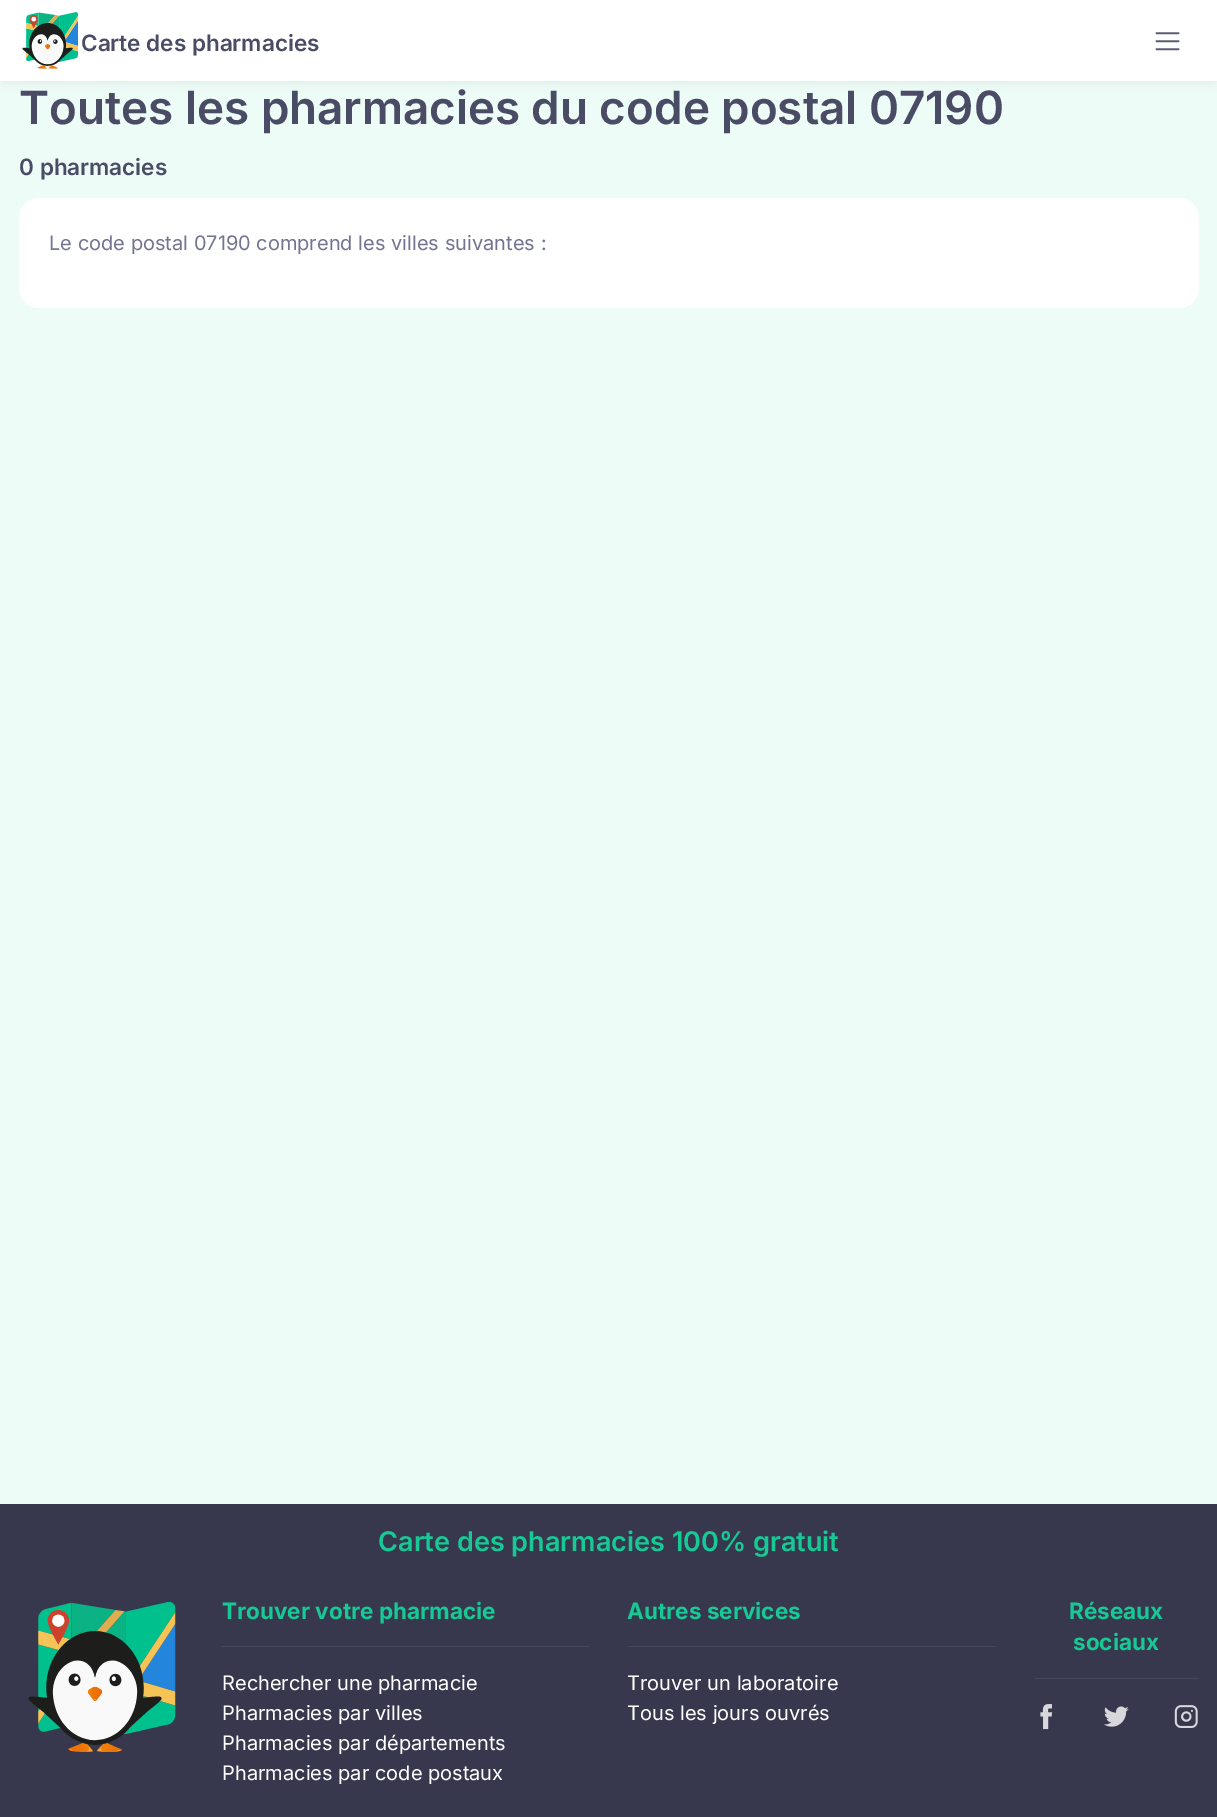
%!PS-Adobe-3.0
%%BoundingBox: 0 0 1217 1817
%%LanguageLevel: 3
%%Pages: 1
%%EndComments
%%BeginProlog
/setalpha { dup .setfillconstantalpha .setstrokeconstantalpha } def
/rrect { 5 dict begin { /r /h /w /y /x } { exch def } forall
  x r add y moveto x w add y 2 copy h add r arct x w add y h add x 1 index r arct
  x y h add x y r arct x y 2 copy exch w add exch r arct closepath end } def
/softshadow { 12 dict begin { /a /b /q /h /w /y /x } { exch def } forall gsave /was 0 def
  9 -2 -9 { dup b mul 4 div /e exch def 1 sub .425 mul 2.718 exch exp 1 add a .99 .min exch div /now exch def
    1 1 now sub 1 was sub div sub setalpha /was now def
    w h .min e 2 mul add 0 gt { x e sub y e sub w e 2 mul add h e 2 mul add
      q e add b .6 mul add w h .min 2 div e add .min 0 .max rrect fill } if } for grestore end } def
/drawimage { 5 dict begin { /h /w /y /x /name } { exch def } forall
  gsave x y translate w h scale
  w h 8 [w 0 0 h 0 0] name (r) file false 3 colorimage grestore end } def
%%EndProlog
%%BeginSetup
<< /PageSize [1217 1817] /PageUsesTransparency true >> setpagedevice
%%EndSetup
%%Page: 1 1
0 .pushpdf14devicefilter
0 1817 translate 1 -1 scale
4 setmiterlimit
0.929 0.988 0.969 setrgbcolor
0 0 1217 1817 rectfill
0 setgray
4 6 1210 74 0 6 0.1 softshadow
1 setgray
0 0 1217 81 rectfill
(images/1.raw) 22 12 57 57 drawimage
(images/2.raw) 1155 32 25 19 drawimage
19 198 1180 110 20 rrect fill
0.216 0.22 0.306 setrgbcolor
0 1504 1217 313 rectfill
(images/3.raw) 28 1602 148 150 drawimage
0.275 0.278 0.373 setrgbcolor
221 1646 369 1 rectfill
628 1646 368 1 rectfill
1034 1678 165 1 rectfill
(images/4.raw) 1040 1704 13 26 drawimage
(images/5.raw) 1104 1706 25 21 drawimage
(images/6.raw) 1174 1705 24 23 drawimage
/Inter-SemiBold [22.5 0 0 -22.5 0 0] selectfont
0.29 0.294 0.396 setrgbcolor
81 51 moveto (Carte des pharmacies) show
/Inter-SemiBold [45.75 0 0 -45.75 0 0] selectfont
19 124 moveto (Toutes les pharmacies du code postal 07190) show
/Inter-SemiBold [22.5 0 0 -22.5 0 0] selectfont
19 175 moveto (0 pharmacies) show
/Inter-Regular [20 0 0 -20 0 0] selectfont
0.451 0.455 0.569 setrgbcolor
49 250 moveto (Le code postal 07190 comprend les villes suivantes :) show
/Inter-SemiBold [27.1 0 0 -27.1 0 0] selectfont
0.086 0.788 0.584 setrgbcolor
378 1551 moveto (Carte des pharmacies 100% gratuit) show
/Inter-Bold [22.5 0 0 -22.5 0 0] selectfont
222 1619 moveto (Trouver votre pharmacie) show
/Inter-Regular [20 0 0 -20 0 0] selectfont
1 setgray
222 1690 moveto (Rechercher une pharmacie) show
222 1720 moveto (Pharmacies par villes) show
222 1750 moveto (Pharmacies par départements) show
222 1780 moveto (Pharmacies par code postaux) show
/Inter-Bold [22.5 0 0 -22.5 0 0] selectfont
0.086 0.788 0.584 setrgbcolor
627 1619 moveto (Autres services) show
/Inter-Regular [20 0 0 -20 0 0] selectfont
1 setgray
627 1690 moveto (Trouver un laboratoire) show
627 1720 moveto (Tous les jours ouvrés) show
/Inter-Bold [22.5 0 0 -22.5 0 0] selectfont
0.086 0.788 0.584 setrgbcolor
1069 1619 moveto (Réseaux) show
1073 1650 moveto (sociaux) show
.poppdf14devicefilter showpage
%%EOF
